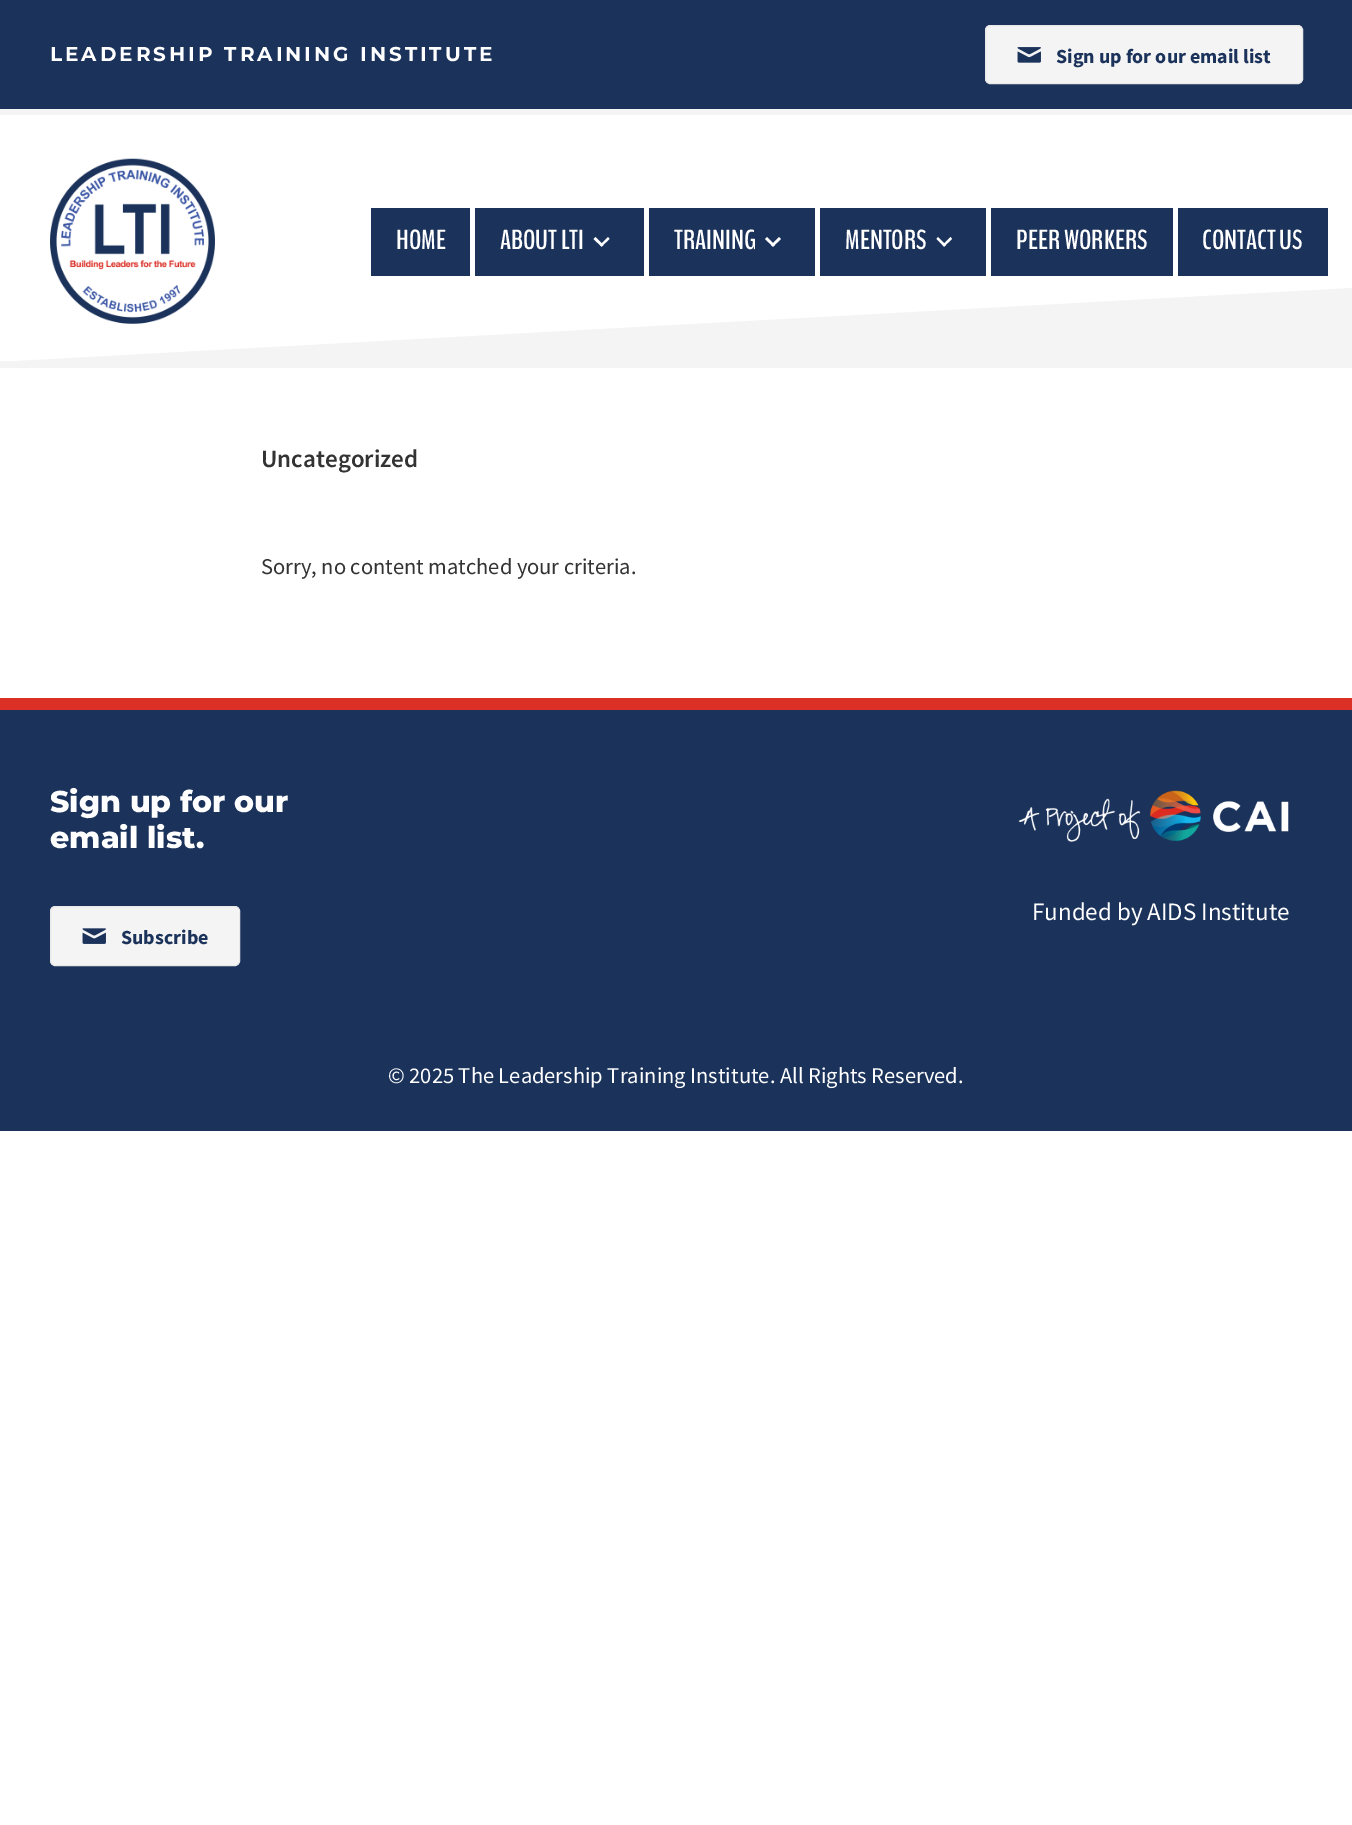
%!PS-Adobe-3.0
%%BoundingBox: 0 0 1352 1825
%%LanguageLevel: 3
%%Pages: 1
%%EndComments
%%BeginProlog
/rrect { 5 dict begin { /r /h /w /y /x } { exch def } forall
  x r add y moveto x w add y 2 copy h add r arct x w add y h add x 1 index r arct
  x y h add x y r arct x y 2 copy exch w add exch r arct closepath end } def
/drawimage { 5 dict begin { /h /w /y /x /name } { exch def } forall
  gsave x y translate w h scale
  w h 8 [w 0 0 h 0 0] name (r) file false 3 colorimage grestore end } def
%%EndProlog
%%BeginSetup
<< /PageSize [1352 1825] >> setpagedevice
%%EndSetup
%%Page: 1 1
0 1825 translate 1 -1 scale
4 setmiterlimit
1 setgray
0 0 1352 1825 rectfill
0.106 0.196 0.357 setrgbcolor
0 0 1352 109 rectfill
0.957 setgray
0 109 1352 6 rectfill
985.5 25.5 317 58 4.5 rrect gsave fill grestore
0.91 setgray
stroke
(images/1.raw) 1017 47 24 16 drawimage
0.957 setgray
0 361 1352 7 rectfill
newpath 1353 288 moveto 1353 362 lineto -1 362 lineto closepath fill
(images/2.raw) 50 158 165 166 drawimage
0.106 0.196 0.357 setrgbcolor
371 208 99 68 rectfill
475 208 169 68 rectfill
1 setgray
newpath 608 237 moveto 609.5 239 lineto 601.5 246.5 lineto 600 245 lineto closepath fill
newpath 595.5 237 moveto 603.5 245 lineto 601.5 246.5 lineto 593.5 239 lineto closepath fill
0.106 0.196 0.357 setrgbcolor
649 208 166 68 rectfill
1 setgray
newpath 779 237 moveto 781 239 lineto 773 246.5 lineto 771 245 lineto closepath fill
newpath 767 237 moveto 775 245 lineto 773 246.5 lineto 765 239 lineto closepath fill
0.106 0.196 0.357 setrgbcolor
820 208 166 68 rectfill
1 setgray
newpath 950.5 237 moveto 952 239 lineto 944 246.5 lineto 942.5 245 lineto closepath fill
newpath 938 237 moveto 946 245 lineto 944 246.5 lineto 936.5 239 lineto closepath fill
0.106 0.196 0.357 setrgbcolor
991 208 182 68 rectfill
1178 208 150 68 rectfill
0 710 1352 421 rectfill
0.863 0.188 0.153 setrgbcolor
0 698 1352 12 rectfill
0.957 setgray
50.5 906.5 189 59 4.5 rrect gsave fill grestore
0.91 setgray
stroke
(images/3.raw) 82 928 24 16 drawimage
(images/4.raw) 1018 790 271 52 drawimage
/Montserrat-Bold [20 0 0 -20 0 0] selectfont
1 setgray
50 61 moveto 3 0 (LEADERSHIP TRAINING INSTITUTE) ashow
/SourceSansPro-Bold [20 0 0 -20 0 0] selectfont
0.106 0.196 0.357 setrgbcolor
1056 63 moveto (Sign up for our email list) show
/BenchNine-Bold [27.5 0 0 -27.5 0 0] selectfont
1 setgray
396 249 moveto (HOME) show
500 249 moveto (ABOUT LTI) show
674 249 moveto (TRAINING) show
845 249 moveto (MENTORS) show
1016 249 moveto (PEER WORKERS) show
1202 249 moveto (CONTACT US) show
/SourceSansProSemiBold-SemiBold [25 0 0 -25 0 0] selectfont
0.2 setgray
261 467 moveto (Uncategorized) show
/SourceSansPro-Regular [22.5 0 0 -22.5 0 0] selectfont
261 574 moveto (Sorry, no content matched your criteria.) show
/Montserrat-ExtraBold [30 0 0 -30 0 0] selectfont
1 setgray
50 812 moveto (Sign up for our) show
50 848 moveto (email list.) show
/SourceSansPro-Bold [20 0 0 -20 0 0] selectfont
0.106 0.196 0.357 setrgbcolor
121 944 moveto (Subscribe) show
/SourceSansPro-Regular [25 0 0 -25 0 0] selectfont
1 setgray
1032 920 moveto (Funded by AIDS Institute) show
/SourceSansPro-Regular [22.5 0 0 -22.5 0 0] selectfont
388 1083 moveto (© 2025 The Leadership Training Institute. All Rights Reserved.) show
showpage
%%EOF
